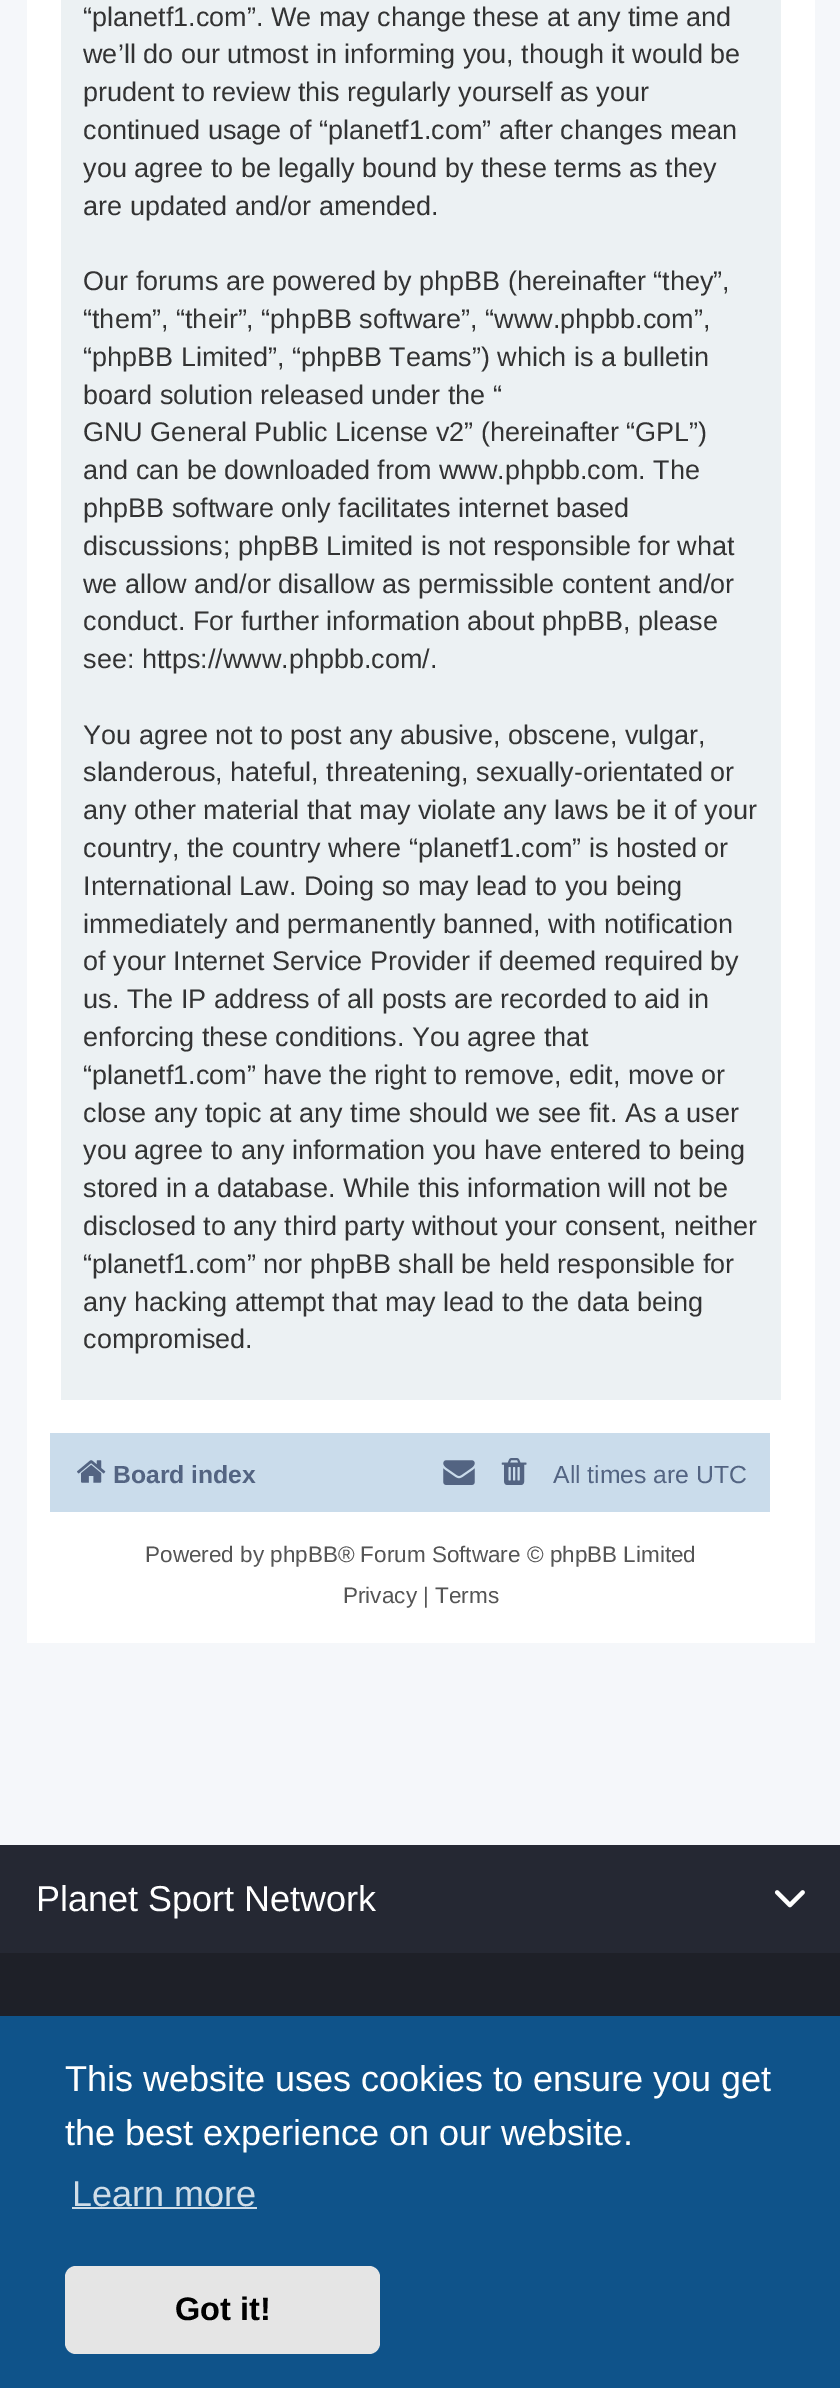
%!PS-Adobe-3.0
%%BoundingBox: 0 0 840 2388
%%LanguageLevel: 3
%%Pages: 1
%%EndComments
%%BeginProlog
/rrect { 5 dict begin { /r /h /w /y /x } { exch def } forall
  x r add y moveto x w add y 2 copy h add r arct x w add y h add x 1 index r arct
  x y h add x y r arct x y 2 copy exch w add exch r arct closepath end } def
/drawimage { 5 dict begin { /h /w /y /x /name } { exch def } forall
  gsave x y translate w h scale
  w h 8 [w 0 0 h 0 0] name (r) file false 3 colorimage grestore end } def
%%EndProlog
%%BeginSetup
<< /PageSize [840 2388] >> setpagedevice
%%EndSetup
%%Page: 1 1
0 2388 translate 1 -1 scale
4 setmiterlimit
0.961 0.969 0.98 setrgbcolor
0 0 840 2388 rectfill
1 setgray
27 0 788 1643 rectfill
0.925 0.945 0.953 setrgbcolor
61 0 720 1400 rectfill
0.792 0.863 0.922 setrgbcolor
50 1433 720 79 rectfill
(images/1.raw) 77 1460 29 23 drawimage
(images/2.raw) 443 1460 32 25 drawimage
(images/3.raw) 501 1458 26 27 drawimage
0.145 0.157 0.2 setrgbcolor
0 1845 840 108 rectfill
(images/4.raw) 774 1890 31 18 drawimage
0.118 0.125 0.157 setrgbcolor
0 1953 840 63 rectfill
0.059 0.325 0.541 setrgbcolor
0 2016 840 372 rectfill
0.812 0.867 0.91 setrgbcolor
72 2207 185 2 rectfill
0.898 setgray
65 2266 315 88 11 rrect fill
/LiberationSans-Regular [27 0 0 -27 0 0] selectfont
0.2 setgray
83 26 moveto (“planetf1.com”. We may change these at any time and) show
83 63 moveto (we’ll do our utmost in informing you, though it would be) show
83 101 moveto (prudent to review this regularly yourself as your) show
83 139 moveto (continued usage of “planetf1.com” after changes mean) show
83 177 moveto (you agree to be legally bound by these terms as they) show
83 215 moveto (are updated and/or amended.) show
83 290 moveto (Our forums are powered by phpBB \(hereinafter “they”,) show
83 328 moveto (“them”, “their”, “phpBB software”, “www.phpbb.com”,) show
83 366 moveto (“phpBB Limited”, “phpBB Teams”\) which is a bulletin) show
83 404 moveto (board solution released under the “) show
83 441 moveto (GNU General Public License v2” \(hereinafter “GPL”\)) show
83 479 moveto (and can be downloaded from www.phpbb.com. The) show
83 517 moveto (phpBB software only facilitates internet based) show
83 555 moveto (discussions; phpBB Limited is not responsible for what) show
83 593 moveto (we allow and/or disallow as permissible content and/or) show
83 630 moveto (conduct. For further information about phpBB, please) show
83 668 moveto (see: https://www.phpbb.com/.) show
83 744 moveto (You agree not to post any abusive, obscene, vulgar,) show
83 781 moveto (slanderous, hateful, threatening, sexually-orientated or) show
83 819 moveto (any other material that may violate any laws be it of your) show
83 857 moveto (country, the country where “planetf1.com” is hosted or) show
83 895 moveto (International Law. Doing so may lead to you being) show
83 933 moveto (immediately and permanently banned, with notification) show
83 970 moveto (of your Internet Service Provider if deemed required by) show
83 1008 moveto (us. The IP address of all posts are recorded to aid in) show
83 1046 moveto (enforcing these conditions. You agree that) show
83 1084 moveto (“planetf1.com” have the right to remove, edit, move or) show
83 1122 moveto (close any topic at any time should we see fit. As a user) show
83 1159 moveto (you agree to any information you have entered to being) show
83 1197 moveto (stored in a database. While this information will not be) show
83 1235 moveto (disclosed to any third party without your consent, neither) show
83 1273 moveto (“planetf1.com” nor phpBB shall be held responsible for) show
83 1311 moveto (any hacking attempt that may lead to the data being) show
83 1348 moveto (compromised.) show
/LiberationSans-Bold [24.75 0 0 -24.75 0 0] selectfont
0.325 0.392 0.51 setrgbcolor
113 1483 moveto (Board index) show
/LiberationSans-Regular [24.75 0 0 -24.75 0 0] selectfont
553 1483 moveto (All times are UTC) show
/LiberationSans-Regular [22.5 0 0 -22.5 0 0] selectfont
0.333 setgray
145 1562 moveto (Powered by phpBB® Forum Software © phpBB Limited) show
343 1603 moveto (Privacy | Terms) show
/LiberationSans-Regular [36 0 0 -36 0 0] selectfont
1 setgray
36 1911 moveto (Planet Sport Network) show
65 2091 moveto (This website uses cookies to ensure you get) show
65 2145 moveto (the best experience on our website.) show
0.812 0.867 0.91 setrgbcolor
72 2206 moveto (Learn more) show
/LiberationSans-Bold [32.5 0 0 -32.5 0 0] selectfont
0 setgray
175 2320 moveto (Got it!) show
showpage
%%EOF
